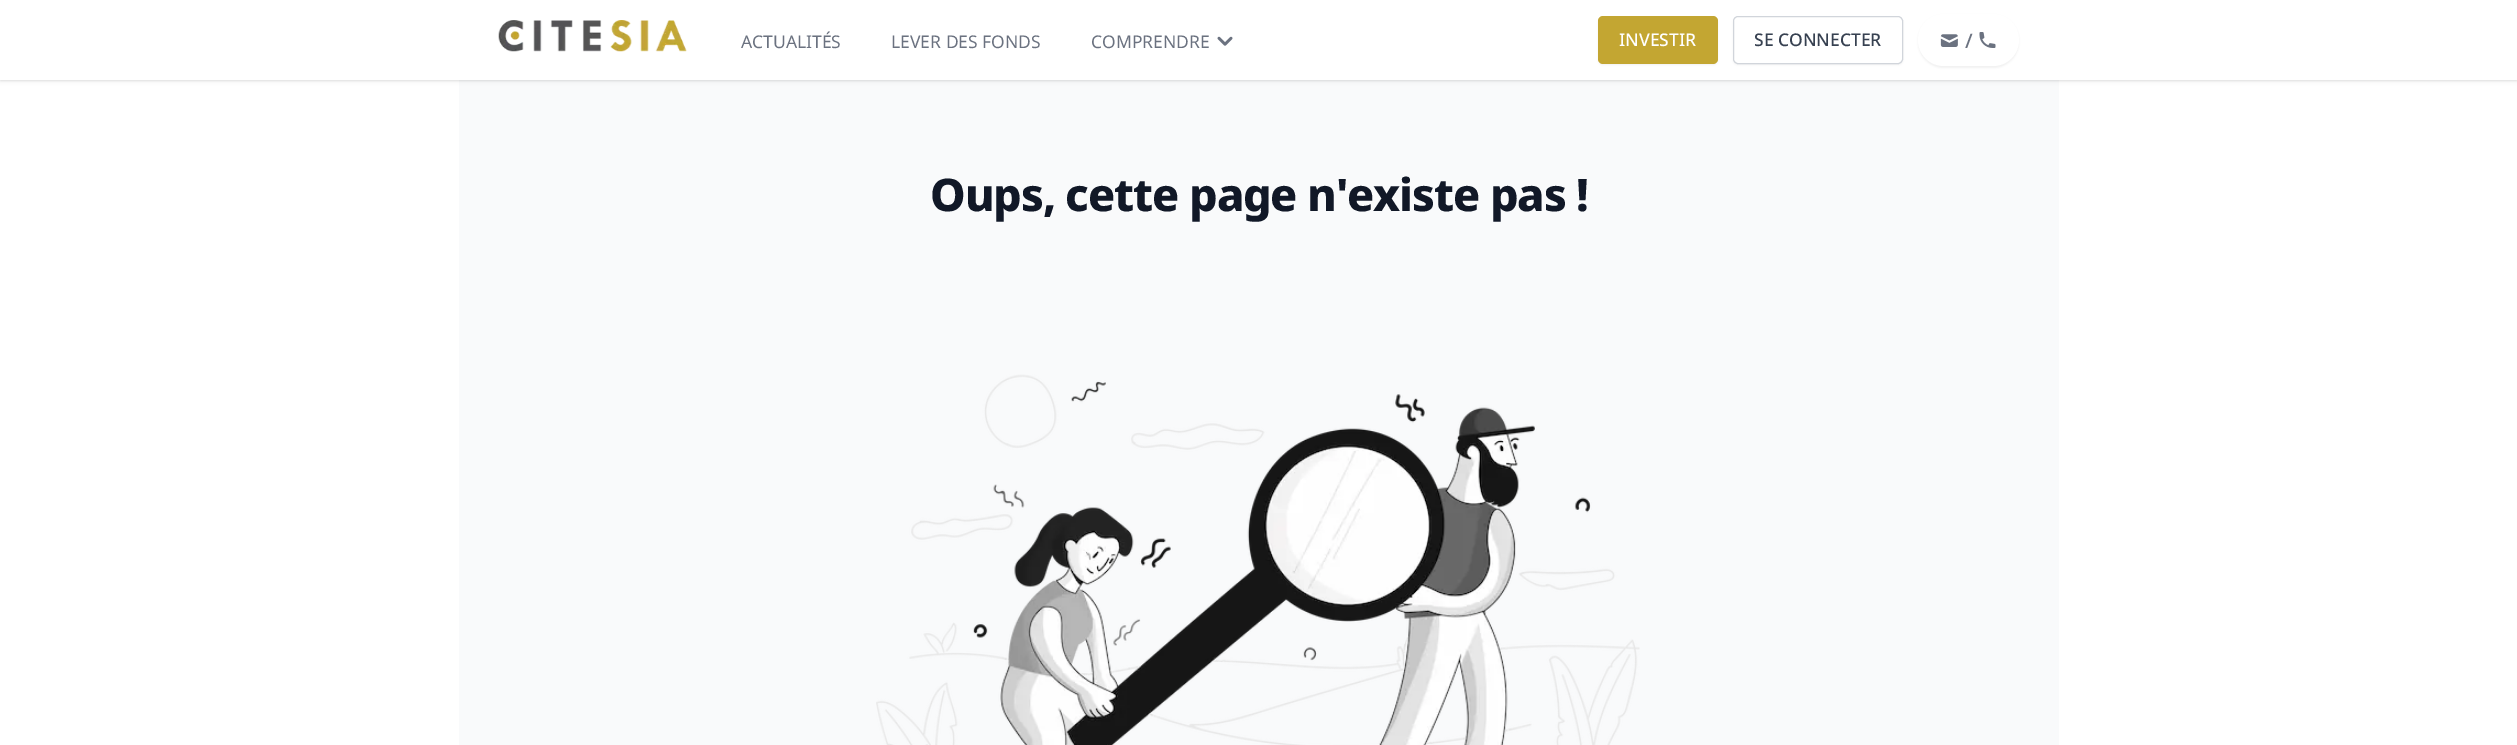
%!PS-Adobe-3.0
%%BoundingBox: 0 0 2517 745
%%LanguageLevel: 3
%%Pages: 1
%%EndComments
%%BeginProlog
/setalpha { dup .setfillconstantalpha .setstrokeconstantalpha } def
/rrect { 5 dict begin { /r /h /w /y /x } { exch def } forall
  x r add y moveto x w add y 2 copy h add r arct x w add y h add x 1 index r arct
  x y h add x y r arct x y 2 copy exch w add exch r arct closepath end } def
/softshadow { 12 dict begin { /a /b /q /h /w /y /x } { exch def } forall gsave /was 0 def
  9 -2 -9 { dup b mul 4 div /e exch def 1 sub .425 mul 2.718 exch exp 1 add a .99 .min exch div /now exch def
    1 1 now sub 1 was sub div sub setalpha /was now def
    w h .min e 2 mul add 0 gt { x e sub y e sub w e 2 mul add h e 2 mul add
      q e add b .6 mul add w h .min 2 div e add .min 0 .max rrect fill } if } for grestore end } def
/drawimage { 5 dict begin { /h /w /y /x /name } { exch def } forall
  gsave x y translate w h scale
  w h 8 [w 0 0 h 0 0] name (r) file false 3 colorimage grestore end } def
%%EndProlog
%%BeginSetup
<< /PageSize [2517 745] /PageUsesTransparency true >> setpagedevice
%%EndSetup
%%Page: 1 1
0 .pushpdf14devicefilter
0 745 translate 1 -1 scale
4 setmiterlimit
1 setgray
0 0 2517 745 rectfill
0.976 0.98 0.984 setrgbcolor
459 80 1600 665 rectfill
0 setgray
1 3 2515 77 0 1 0.1 softshadow
0 1 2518 80 0 2 0.1 softshadow
1 setgray
0 0 2517 80 rectfill
(images/1.raw) 498 20 189 32 drawimage
(images/2.raw) 1217 36 16 10 drawimage
0 setgray
1598 18 120 47 5 1 0.05 softshadow
0.765 0.651 0.196 setrgbcolor
1598 16 120 48 5 rrect fill
0 setgray
1733 18 170 47 5 1 0.05 softshadow
1 setgray
1733.5 16.5 169 47 4.5 rrect gsave fill grestore
0.82 0.835 0.859 setrgbcolor
stroke
0 setgray
1918 15 101 53 26.5 1 0.05 softshadow
1 setgray
1918 14 101 52 26 rrect fill
(images/3.raw) 1940 34 18 13 drawimage
(images/4.raw) 1979 32 17 16 drawimage
(images/5.raw) 876 374 764 371 drawimage
/NotoSans-Regular [17.5 0 0 -17.5 0 0] selectfont
0.42 0.447 0.502 setrgbcolor
741 48 moveto (ACTUALITÉS) show
891 48 moveto (LEVER DES FONDS) show
1091 48 moveto (COMPRENDRE) show
/NotoSans-Medium [17.5 0 0 -17.5 0 0] selectfont
1 setgray
1619 46 moveto (INVESTIR) show
0.216 0.255 0.318 setrgbcolor
1754 46 moveto (SE CONNECTER) show
/NotoSans-Medium [20 0 0 -20 0 0] selectfont
0.42 0.447 0.502 setrgbcolor
1965 48 moveto (/) show
/NotoSans-ExtraBold [45 0 0 -45 0 0] selectfont
0.067 0.094 0.153 setrgbcolor
930 211 moveto -1.1 0 (Oups, cette page n'existe pas !) ashow
.poppdf14devicefilter showpage
%%EOF
